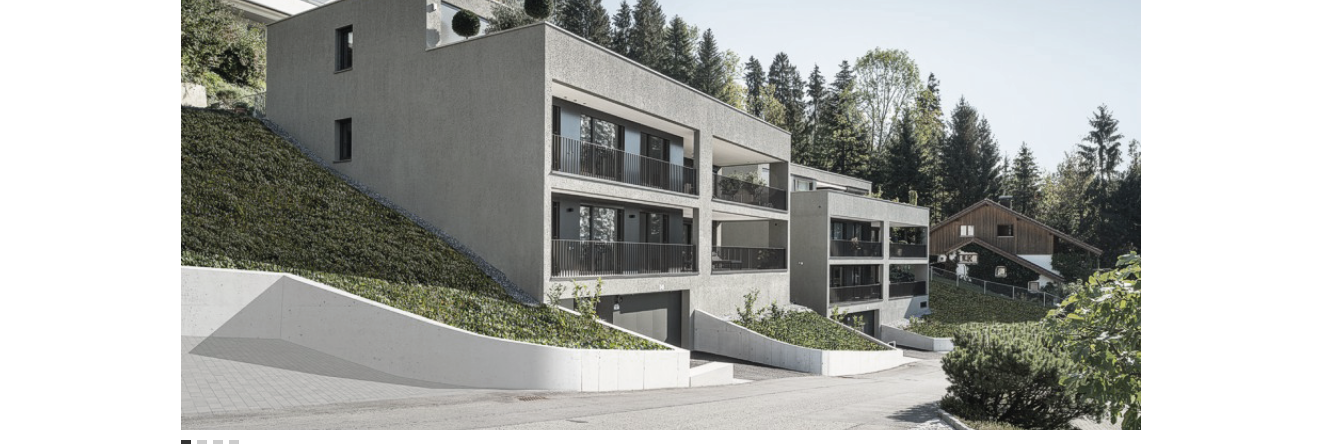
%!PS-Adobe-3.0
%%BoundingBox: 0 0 1322 444
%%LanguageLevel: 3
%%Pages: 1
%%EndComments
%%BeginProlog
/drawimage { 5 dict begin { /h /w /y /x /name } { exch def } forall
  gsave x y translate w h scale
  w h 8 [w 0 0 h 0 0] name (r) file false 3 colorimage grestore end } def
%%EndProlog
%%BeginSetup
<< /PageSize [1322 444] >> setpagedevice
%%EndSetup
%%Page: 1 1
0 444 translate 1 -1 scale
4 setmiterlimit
1 setgray
0 0 1322 444 rectfill
(images/1.raw) 181 0 960 430 drawimage
0.2 setgray
181 440 10 4 rectfill
0.8 setgray
197 440 10 4 rectfill
213 440 10 4 rectfill
229 440 10 4 rectfill
showpage
%%EOF
